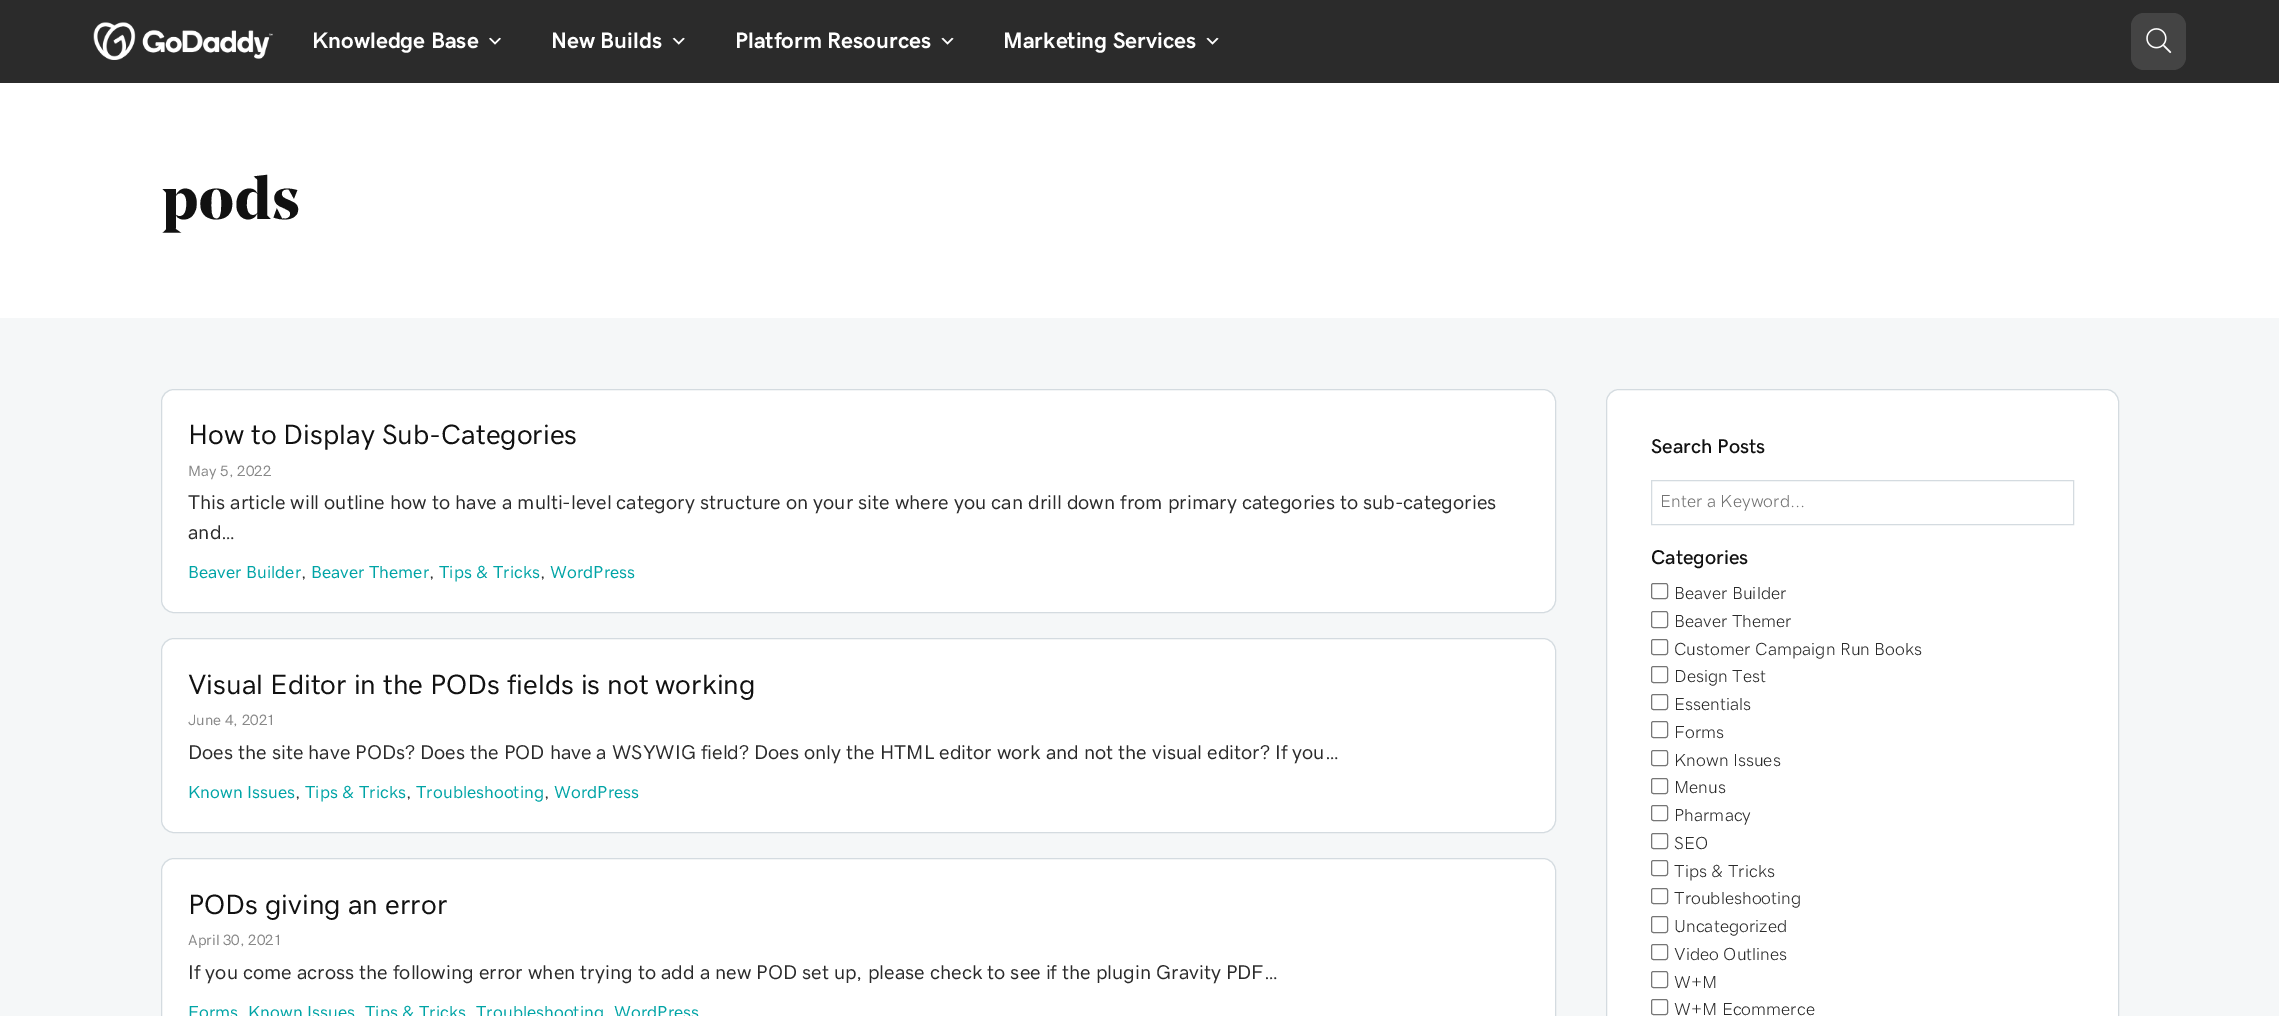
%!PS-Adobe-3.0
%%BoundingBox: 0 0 2279 1016
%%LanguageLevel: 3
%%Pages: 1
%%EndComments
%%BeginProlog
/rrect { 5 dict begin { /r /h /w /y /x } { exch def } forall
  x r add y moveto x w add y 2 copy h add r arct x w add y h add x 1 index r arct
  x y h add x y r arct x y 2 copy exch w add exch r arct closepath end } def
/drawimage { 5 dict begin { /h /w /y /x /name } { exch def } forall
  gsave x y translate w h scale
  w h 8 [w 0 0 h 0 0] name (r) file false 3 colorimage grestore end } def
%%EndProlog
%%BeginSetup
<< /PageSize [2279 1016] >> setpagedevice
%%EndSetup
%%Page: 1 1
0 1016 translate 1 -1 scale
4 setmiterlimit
1 setgray
0 0 2279 1016 rectfill
0.169 setgray
0 0 2279 83 rectfill
(images/1.raw) 93 22 180 38 drawimage
(images/2.raw) 489 37 12 8 drawimage
(images/3.raw) 672 37 13 8 drawimage
(images/4.raw) 941 37 13 8 drawimage
(images/4.raw) 1206 37 13 8 drawimage
0.267 setgray
2131 13 55 57 13 rrect fill
(images/5.raw) 2146 28 26 26 drawimage
0.961 0.969 0.973 setrgbcolor
0 318 2279 698 rectfill
1 setgray
161.5 389.5 1394 223 12.5 rrect gsave fill grestore
0.831 0.859 0.878 setrgbcolor
stroke
1 setgray
161.5 638.5 1394 194 12.5 rrect gsave fill grestore
0.831 0.859 0.878 setrgbcolor
stroke
1 setgray
161.5 858.5 1394 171 12.5 rrect gsave fill grestore
0.831 0.859 0.878 setrgbcolor
stroke
1 setgray
1606.5 389.5 512 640 12.5 rrect gsave fill grestore
0.831 0.859 0.878 setrgbcolor
stroke
1651.5 480.5 422 44 rectstroke
0.463 setgray
1651.5 583.5 16 15 2 rrect stroke
1651.5 611.5 16 16 2 rrect stroke
1651.5 639.5 16 15 2 rrect stroke
1651.5 666.5 16 16 2 rrect stroke
1651.5 694.5 16 15 2 rrect stroke
1651.5 721.5 16 16 2 rrect stroke
1651.5 750.5 16 15 2 rrect stroke
1651.5 778.5 16 15 2 rrect stroke
1651.5 805.5 16 15 2 rrect stroke
1651.5 833.5 16 15 2 rrect stroke
1651.5 860.5 16 15 2 rrect stroke
1651.5 888.5 16 15 2 rrect stroke
1651.5 916.5 16 16 2 rrect stroke
1651.5 944.5 16 15 2 rrect stroke
1651.5 971.5 16 16 2 rrect stroke
1651.5 999.5 16 15 2 rrect stroke
/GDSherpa-Bold [22.5 0 0 -22.5 0 0] selectfont
1 setgray
312 48 moveto (Knowledge Base) show
551 48 moveto (New Builds) show
735 48 moveto (Platform Resources) show
1003 48 moveto (Marketing Services) show
/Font-Bold [57.5 0 0 -57.5 0 0] selectfont
0.067 setgray
162 219 moveto 1 0 (pods) ashow
/GDSherpa-Medium [28 0 0 -28 0 0] selectfont
188 444 moveto (How to Display Sub-Categories) show
/GDSherpa-Medium [15 0 0 -15 0 0] selectfont
0.533 setgray
188 476 moveto (May 5, 2022) show
/GDSherpa-Medium [20 0 0 -20 0 0] selectfont
0.169 setgray
188 509 moveto (This article will outline how to have a multi-level category structure on your site where you can drill down from primary categories to sub-categories) show
188 539 moveto (and…) show
/GDSherpa-Medium [17.5 0 0 -17.5 0 0] selectfont
0 0.643 0.651 setrgbcolor
188 578 moveto (Beaver Builder) show
0.169 setgray
301 578 moveto (,) show
0 0.643 0.651 setrgbcolor
311 578 moveto (Beaver Themer) show
0.169 setgray
429 578 moveto (,) show
0 0.643 0.651 setrgbcolor
439 578 moveto (Tips & Tricks) show
0.169 setgray
540 578 moveto (,) show
0 0.643 0.651 setrgbcolor
550 578 moveto (WordPress) show
/GDSherpa-Medium [28 0 0 -28 0 0] selectfont
0.067 setgray
188 694 moveto (Visual Editor in the PODs fields is not working) show
/GDSherpa-Medium [15 0 0 -15 0 0] selectfont
0.533 setgray
188 725 moveto (June 4, 2021) show
/GDSherpa-Medium [20 0 0 -20 0 0] selectfont
0.169 setgray
188 759 moveto (Does the site have PODs? Does the POD have a WSYWIG field? Does only the HTML editor work and not the visual editor? If you…) show
/GDSherpa-Medium [17.5 0 0 -17.5 0 0] selectfont
0 0.643 0.651 setrgbcolor
188 798 moveto (Known Issues) show
0.169 setgray
295 798 moveto (,) show
0 0.643 0.651 setrgbcolor
305 798 moveto (Tips & Tricks) show
0.169 setgray
406 798 moveto (,) show
0 0.643 0.651 setrgbcolor
416 798 moveto (Troubleshooting) show
0.169 setgray
544 798 moveto (,) show
0 0.643 0.651 setrgbcolor
554 798 moveto (WordPress) show
/GDSherpa-Medium [28 0 0 -28 0 0] selectfont
0.067 setgray
188 914 moveto (PODs giving an error) show
/GDSherpa-Medium [15 0 0 -15 0 0] selectfont
0.533 setgray
188 945 moveto (April 30, 2021) show
/GDSherpa-Medium [20 0 0 -20 0 0] selectfont
0.169 setgray
188 979 moveto (If you come across the following error when trying to add a new POD set up, please check to see if the plugin Gravity PDF…) show
/GDSherpa-Medium [17.5 0 0 -17.5 0 0] selectfont
0 0.643 0.651 setrgbcolor
188 1018 moveto (Forms) show
248 1018 moveto (Known Issues) show
365 1018 moveto (Tips & Tricks) show
476 1018 moveto (Troubleshooting) show
614 1018 moveto (WordPress) show
/GDSherpa-SemiBold [20 0 0 -20 0 0] selectfont
0.067 setgray
1651 453 moveto (Search Posts) show
/GDSherpa-Regular [17.5 0 0 -17.5 0 0] selectfont
0.451 setgray
1660 507 moveto (Enter a Keyword...) show
/GDSherpa-SemiBold [20 0 0 -20 0 0] selectfont
0.067 setgray
1651 564 moveto (Categories) show
/GDSherpa-Regular [17.5 0 0 -17.5 0 0] selectfont
0.169 setgray
1674 599 moveto (Beaver Builder) show
1674 627 moveto (Beaver Themer) show
1674 655 moveto (Customer Campaign Run Books) show
1674 682 moveto (Design Test) show
1674 710 moveto (Essentials) show
1674 738 moveto (Forms) show
1674 766 moveto (Known Issues) show
1674 793 moveto (Menus) show
1674 821 moveto (Pharmacy) show
1674 849 moveto (SEO) show
1674 877 moveto (Tips & Tricks) show
1674 904 moveto (Troubleshooting) show
1674 932 moveto (Uncategorized) show
1674 960 moveto (Video Outlines) show
1674 988 moveto (W+M) show
1674 1015 moveto (W+M Ecommerce) show
showpage
%%EOF
